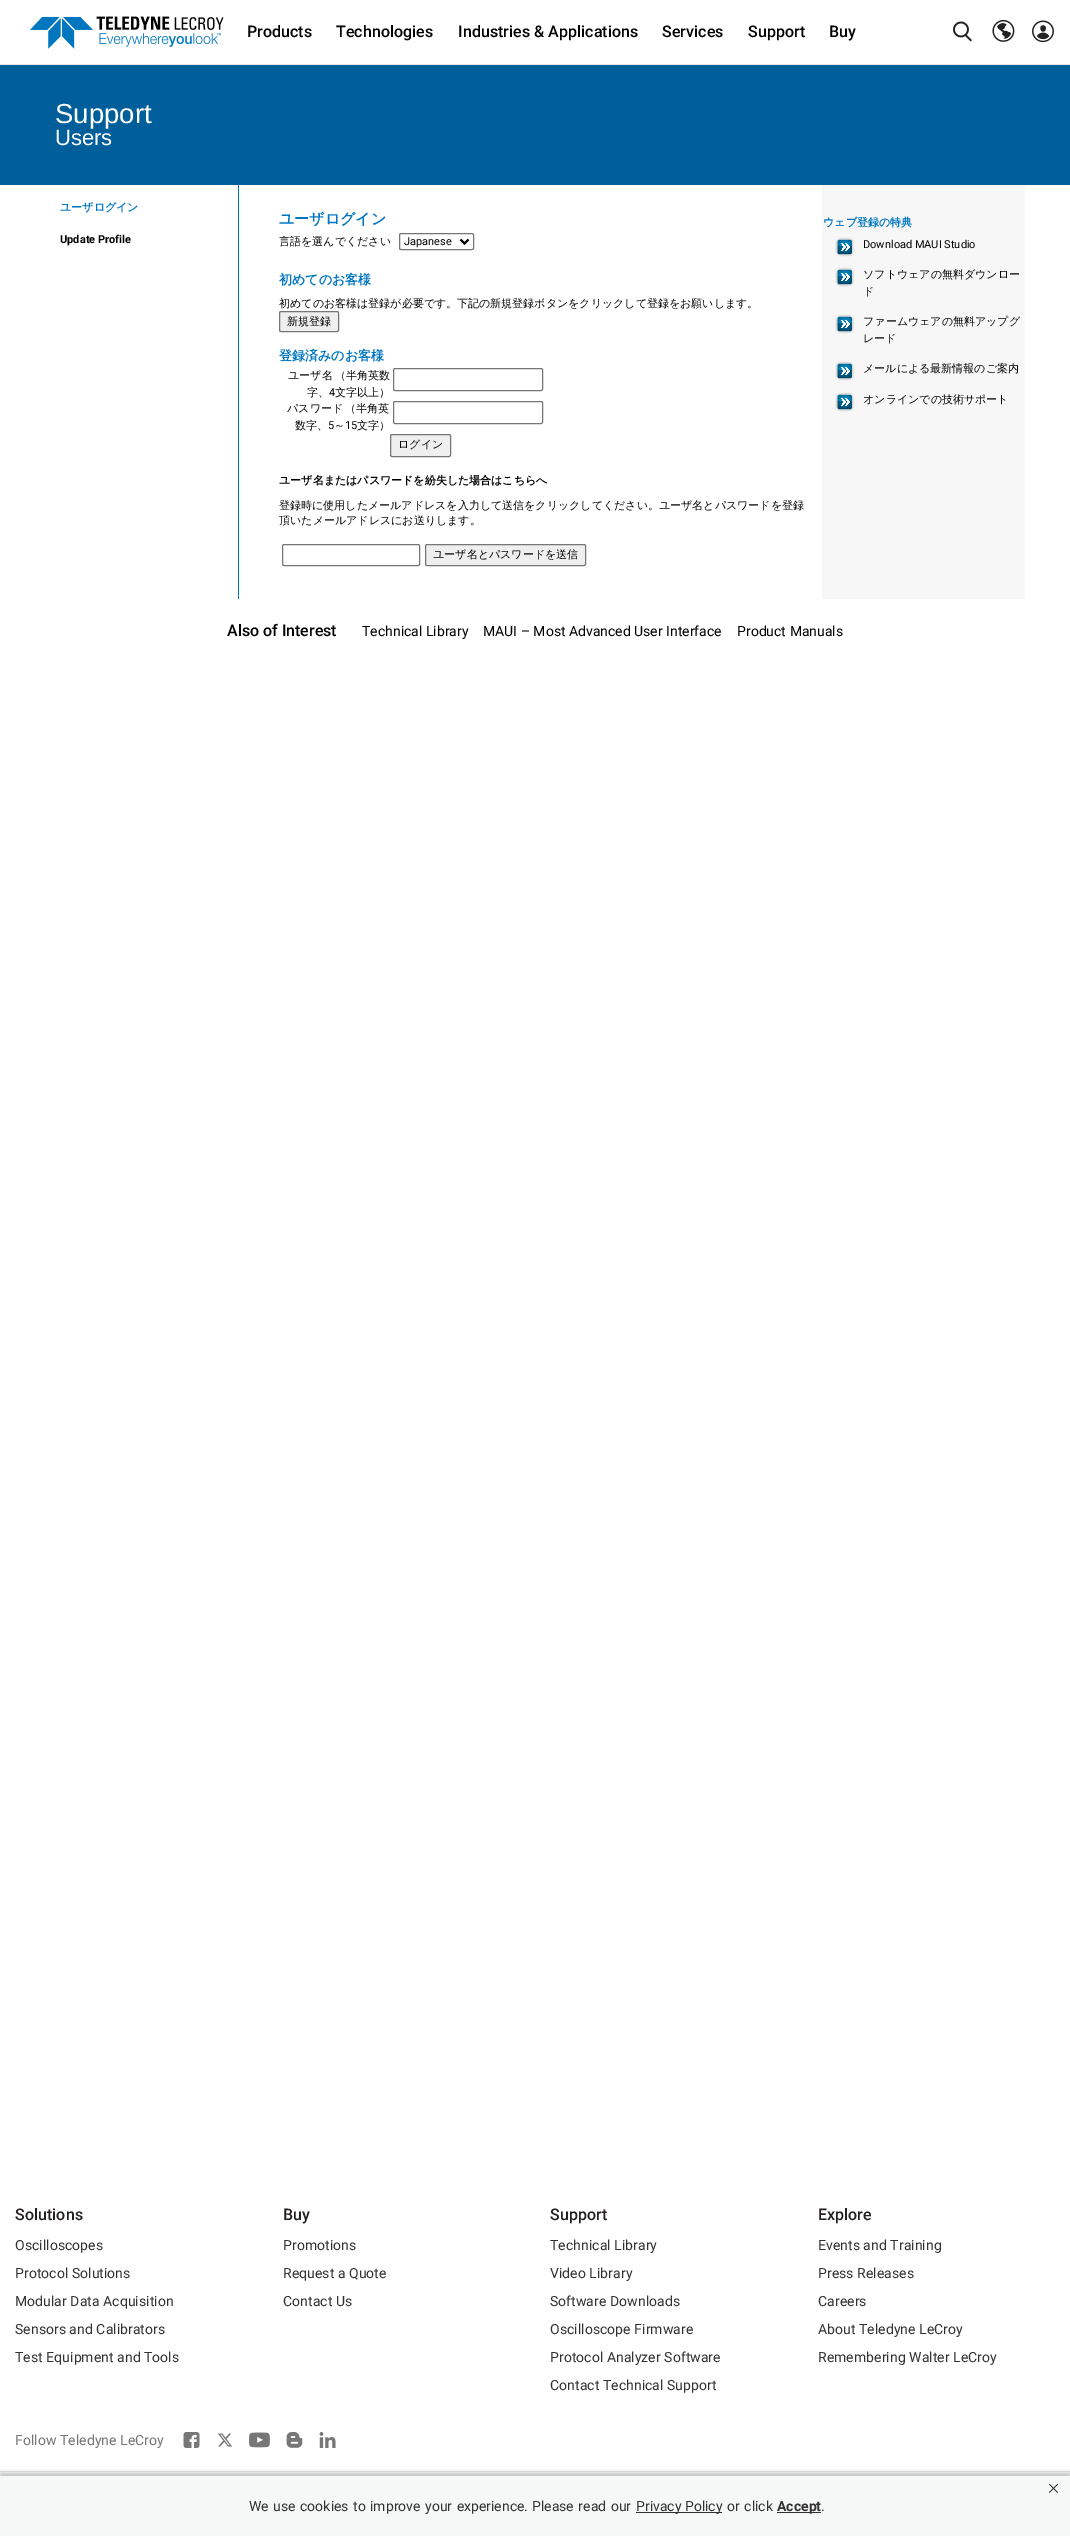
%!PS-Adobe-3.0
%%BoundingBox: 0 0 1070 2536
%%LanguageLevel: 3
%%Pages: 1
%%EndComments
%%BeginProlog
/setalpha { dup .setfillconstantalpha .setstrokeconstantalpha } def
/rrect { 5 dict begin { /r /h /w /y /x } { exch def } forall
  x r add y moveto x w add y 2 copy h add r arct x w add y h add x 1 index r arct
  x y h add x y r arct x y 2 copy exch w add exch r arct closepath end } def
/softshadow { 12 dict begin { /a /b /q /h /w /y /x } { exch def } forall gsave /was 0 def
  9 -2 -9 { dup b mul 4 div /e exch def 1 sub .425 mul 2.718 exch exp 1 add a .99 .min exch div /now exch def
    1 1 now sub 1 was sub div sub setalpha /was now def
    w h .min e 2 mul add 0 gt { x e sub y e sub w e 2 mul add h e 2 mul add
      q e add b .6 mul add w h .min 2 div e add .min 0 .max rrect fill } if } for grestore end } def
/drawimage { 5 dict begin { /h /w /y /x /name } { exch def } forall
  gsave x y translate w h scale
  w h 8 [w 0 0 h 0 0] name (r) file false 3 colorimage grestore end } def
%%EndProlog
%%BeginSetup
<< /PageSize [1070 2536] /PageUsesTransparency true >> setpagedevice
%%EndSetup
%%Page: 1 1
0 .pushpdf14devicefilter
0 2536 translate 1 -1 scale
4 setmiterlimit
1 setgray
0 0 1070 2536 rectfill
0.886 0.894 0.902 setrgbcolor
0 64 1070 1 rectfill
(images/1.raw) 30 16 194 33 drawimage
(images/2.raw) 953 21 19 21 drawimage
(images/3.raw) 992 19 23 23 drawimage
(images/4.raw) 1032 20 22 23 drawimage
0 0.373 0.604 setrgbcolor
0 65 1070 120 rectfill
0.969 setgray
822 185 203 414 rectfill
0 0.463 0.753 setrgbcolor
238 185 1 414 rectfill
(images/5.raw) 835 237 20 20 drawimage
(images/5.raw) 835 267 20 20 drawimage
(images/5.raw) 835 314 20 20 drawimage
(images/5.raw) 835 361 20 20 drawimage
(images/5.raw) 835 392 20 20 drawimage
0.463 setgray
399.5 233.5 74 16 1.5 rrect stroke
0 setgray
2 setlinewidth
newpath 460.5 239.5 moveto 464.5 243.5 lineto 468.5 239.5 lineto stroke
0.937 setgray
279.5 311.5 59 20 1.5 rrect gsave fill grestore
0.463 setgray
1 setlinewidth
stroke
393.5 368.5 149 22 1.5 rrect stroke
393.5 401.5 149 22 1.5 rrect stroke
0.937 setgray
390.5 434.5 60 22 1.5 rrect gsave fill grestore
0.463 setgray
stroke
282.5 544.5 137 21 1.5 rrect stroke
0.937 setgray
425.5 544.5 160 21 1.5 rrect gsave fill grestore
0.463 setgray
stroke
(images/6.raw) 183 2432 17 16 drawimage
(images/7.raw) 218 2433 15 14 drawimage
(images/8.raw) 249 2432 21 16 drawimage
(images/9.raw) 286 2432 17 16 drawimage
(images/10.raw) 319 2432 17 16 drawimage
0.886 0.894 0.902 setrgbcolor
0 2471 1070 1 rectfill
0 setgray
0 2473 1070 60 0 2.5 0.25 softshadow
0.965 0.973 0.969 setrgbcolor
0 2476 1070 60 rectfill
0.196 setgray
636 2512 86 1 rectfill
777 2512 44 1 rectfill
/Roboto-Medium [16 0 0 -16 0 0] selectfont
0 setgray
247 37 moveto 0.05 0 (Products) ashow
336 37 moveto 0.05 0 (Technologies) ashow
458 37 moveto 0.05 0 (Industries & Applications) ashow
662 37 moveto 0.05 0 (Services) ashow
748 37 moveto 0.05 0 (Support) ashow
829 37 moveto 0.05 0 (Buy) ashow
/LiberationSans-Regular [27.5 0 0 -27.5 0 0] selectfont
1 setgray
55 123 moveto (Support) show
/LiberationSans-Regular [22 0 0 -22 0 0] selectfont
55 145 moveto (Users) show
/WenQuanYiZenHei-Bold [11 0 0 -11 0 0] selectfont
0 0.463 0.753 setrgbcolor
60 211 moveto (ユーザログイン) show
/Roboto-Bold [11 0 0 -11 0 0] selectfont
0 setgray
60 243 moveto (Update Profile) show
/WenQuanYiZenHei-Bold [11 0 0 -11 0 0] selectfont
0 0.463 0.753 setrgbcolor
823 226 moveto (ウェブ登録の特典) show
/Roboto-Regular [11 0 0 -11 0 0] selectfont
0 setgray
863 248 moveto (Download MAUI Studio) show
/WenQuanYiZenHei-Medium [11 0 0 -11 0 0] selectfont
863 278 moveto (ソフトウェアの無料ダウンロー) show
863 295 moveto (ド) show
863 325 moveto (ファームウェアの無料アップグ) show
863 342 moveto (レード) show
863 372 moveto (メールによる最新情報のご案内) show
863 403 moveto (オンラインでの技術サポート) show
/WenQuanYiZenHei-Bold [15 0 0 -15 0 0] selectfont
0 0.463 0.753 setrgbcolor
279 224 moveto (ユーザログイン) show
/WenQuanYiZenHei-Medium [11 0 0 -11 0 0] selectfont
0 setgray
279 245 moveto (言語を選んでください) show
/Roboto-Regular [11 0 0 -11 0 0] selectfont
404 245 moveto (Japanese) show
/WenQuanYiZenHei-Bold [13 0 0 -13 0 0] selectfont
0 0.463 0.753 setrgbcolor
279 284 moveto (初めてのお客様) show
/WenQuanYiZenHei-Medium [11 0 0 -11 0 0] selectfont
0 setgray
279 307 moveto (初めてのお客様は登録が必要です。下記の新規登録ボタンをクリックして登録をお願いします。) show
287 325 moveto (新規登録) show
/WenQuanYiZenHei-Bold [13 0 0 -13 0 0] selectfont
0 0.463 0.753 setrgbcolor
279 360 moveto (登録済みのお客様) show
/WenQuanYiZenHei-Medium [11 0 0 -11 0 0] selectfont
0 setgray
288 379 moveto -1 0 32 (ユーザ名 （半角英数) widthshow
307 396 moveto (字、) show
/Roboto-Regular [11 0 0 -11 0 0] selectfont
329 396 moveto (4) show
/WenQuanYiZenHei-Medium [11 0 0 -11 0 0] selectfont
335 396 moveto (文字以上）) show
287 412 moveto -1 0 32 (パスワード （半角英) widthshow
295 429 moveto (数字、) show
/Roboto-Regular [11 0 0 -11 0 0] selectfont
328 429 moveto (5) show
/WenQuanYiZenHei-Medium [11 0 0 -11 0 0] selectfont
334 429 moveto (～) show
/Roboto-Regular [11 0 0 -11 0 0] selectfont
345 429 moveto (15) show
/WenQuanYiZenHei-Medium [11 0 0 -11 0 0] selectfont
357 429 moveto (文字）) show
398 448 moveto (ログイン) show
/WenQuanYiZenHei-Bold [11 0 0 -11 0 0] selectfont
279 484 moveto (ユーザ名またはパスワードを紛失した場合はこちらへ) show
/WenQuanYiZenHei-Medium [11 0 0 -11 0 0] selectfont
279 509 moveto (登録時に使用したメールアドレスを入力して送信をクリックしてください。ユーザ名とパスワードを登録) show
279 524 moveto (頂いたメールアドレスにお送りします。) show
433 558 moveto (ユーザ名とパスワードを送信) show
/Roboto-Medium [16 0 0 -16 0 0] selectfont
227 636 moveto (Also of Interest) show
/Roboto-Regular [14 0 0 -14 0 0] selectfont
362 636 moveto (Technical Library) show
483 636 moveto (MAUI – Most Advanced User Interface) show
737 636 moveto (Product Manuals) show
/Roboto-Medium [16 0 0 -16 0 0] selectfont
0.137 0.122 0.125 setrgbcolor
15 2220 moveto 0.05 0 (Solutions) ashow
/Roboto-Regular [14 0 0 -14 0 0] selectfont
0.196 setgray
15 2250 moveto 0.05 0 (Oscilloscopes) ashow
15 2278 moveto 0.05 0 (Protocol Solutions) ashow
15 2306 moveto 0.05 0 (Modular Data Acquisition) ashow
15 2334 moveto 0.05 0 (Sensors and Calibrators) ashow
15 2362 moveto 0.05 0 (Test Equipment and Tools) ashow
/Roboto-Medium [16 0 0 -16 0 0] selectfont
0.137 0.122 0.125 setrgbcolor
283 2220 moveto 0.05 0 (Buy) ashow
/Roboto-Regular [14 0 0 -14 0 0] selectfont
0.196 setgray
283 2250 moveto 0.05 0 (Promotions) ashow
283 2278 moveto 0.05 0 (Request a Quote) ashow
283 2306 moveto 0.05 0 (Contact Us) ashow
/Roboto-Medium [16 0 0 -16 0 0] selectfont
0.137 0.122 0.125 setrgbcolor
550 2220 moveto 0.05 0 (Support) ashow
/Roboto-Regular [14 0 0 -14 0 0] selectfont
0.196 setgray
550 2250 moveto 0.05 0 (Technical Library) ashow
550 2278 moveto 0.05 0 (Video Library) ashow
550 2306 moveto 0.05 0 (Software Downloads) ashow
550 2334 moveto 0.05 0 (Oscilloscope Firmware) ashow
550 2362 moveto 0.05 0 (Protocol Analyzer Software) ashow
550 2390 moveto 0.05 0 (Contact Technical Support) ashow
/Roboto-Medium [16 0 0 -16 0 0] selectfont
0.137 0.122 0.125 setrgbcolor
818 2220 moveto 0.05 0 (Explore) ashow
/Roboto-Regular [14 0 0 -14 0 0] selectfont
0.196 setgray
818 2250 moveto 0.05 0 (Events and Training) ashow
818 2278 moveto 0.05 0 (Press Releases) ashow
818 2306 moveto 0.05 0 (Careers) ashow
818 2334 moveto 0.05 0 (About Teledyne LeCroy) ashow
818 2362 moveto 0.05 0 (Remembering Walter LeCroy) ashow
0.459 setgray
15 2445 moveto 0.05 0 (Follow Teledyne LeCroy) ashow
0.196 setgray
249 2511 moveto 1 0 32 (We use cookies to improve your experience.) widthshow
/LiberationSerif-Regular [23 0 0 -23 0 0] selectfont
1047 2496 moveto (×) show
/Roboto-Regular [14 0 0 -14 0 0] selectfont
532 2511 moveto 1 0 32 (Please read our) widthshow
636 2511 moveto (Privacy Policy) show
727 2511 moveto 1 0 32 (or click) widthshow
/Roboto-Bold [14 0 0 -14 0 0] selectfont
777 2511 moveto (Accept) show
/Roboto-Regular [14 0 0 -14 0 0] selectfont
821 2511 moveto (.) show
.poppdf14devicefilter showpage
%%EOF
